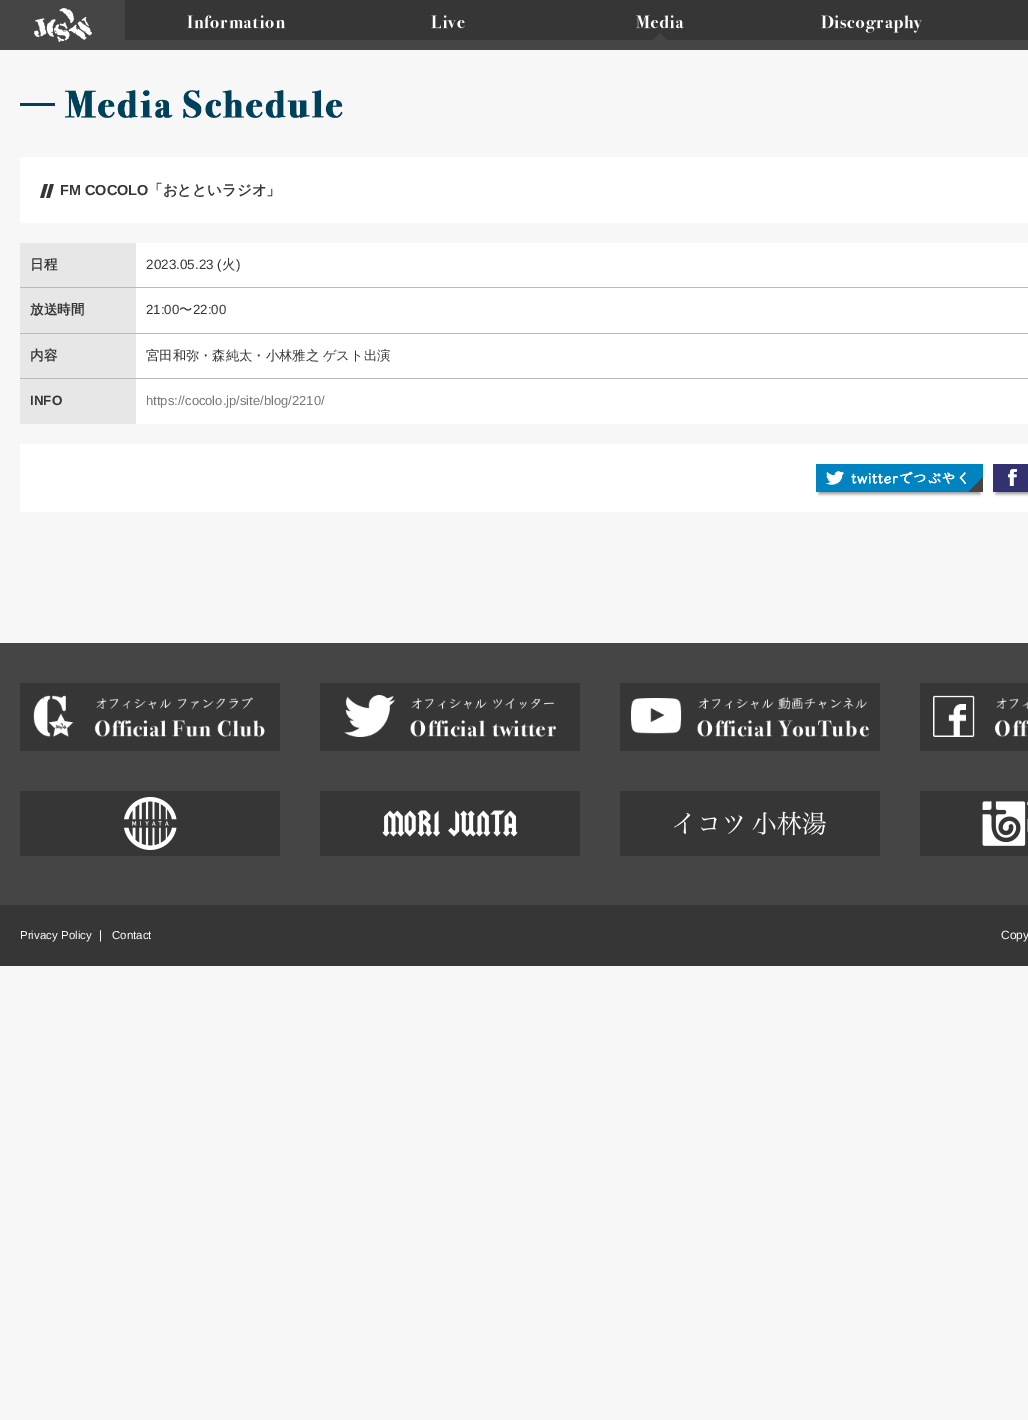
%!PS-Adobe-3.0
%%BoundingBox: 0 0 1028 1420
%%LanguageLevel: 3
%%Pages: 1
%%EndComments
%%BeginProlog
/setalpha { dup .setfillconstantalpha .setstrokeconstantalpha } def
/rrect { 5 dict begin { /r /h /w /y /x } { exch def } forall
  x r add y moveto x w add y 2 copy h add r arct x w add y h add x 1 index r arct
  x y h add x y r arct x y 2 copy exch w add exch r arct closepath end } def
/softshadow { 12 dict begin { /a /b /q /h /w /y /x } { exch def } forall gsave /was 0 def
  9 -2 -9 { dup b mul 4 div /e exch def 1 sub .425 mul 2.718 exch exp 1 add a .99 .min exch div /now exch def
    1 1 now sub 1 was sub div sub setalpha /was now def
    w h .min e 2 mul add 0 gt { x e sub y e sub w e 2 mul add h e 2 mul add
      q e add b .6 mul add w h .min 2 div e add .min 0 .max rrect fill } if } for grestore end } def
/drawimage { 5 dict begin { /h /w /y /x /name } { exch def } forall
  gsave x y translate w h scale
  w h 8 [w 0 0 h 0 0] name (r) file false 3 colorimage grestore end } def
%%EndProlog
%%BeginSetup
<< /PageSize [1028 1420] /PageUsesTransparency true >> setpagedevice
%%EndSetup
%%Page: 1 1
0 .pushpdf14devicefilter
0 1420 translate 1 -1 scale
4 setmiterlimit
0.969 setgray
0 0 1028 1420 rectfill
0.271 setgray
125 40 903 10 rectfill
0.212 setgray
125 0 903 40 rectfill
0.271 setgray
0 0 125 50 rectfill
(images/1.raw) 34 8 58 34 drawimage
(images/2.raw) 187 15 99 14 drawimage
(images/3.raw) 431 15 34 14 drawimage
(images/4.raw) 653 33 14 7 drawimage
(images/5.raw) 636 15 48 14 drawimage
(images/6.raw) 821 15 102 18 drawimage
0 0.251 0.357 setrgbcolor
20 103 35 3 rectfill
(images/7.raw) 65 90 278 29 drawimage
1 setgray
20 157 1008 66 rectfill
(images/8.raw) 40 184 14 14 drawimage
136 243 892 181 rectfill
0.906 setgray
20 243 116 44 rectfill
20 288 116 45 rectfill
0.725 setgray
20 287 1008 1 rectfill
0.906 setgray
20 334 116 44 rectfill
0.725 setgray
20 333 1008 1 rectfill
0.906 setgray
20 379 116 45 rectfill
0.725 setgray
20 378 1008 1 rectfill
1 setgray
20 444 1008 68 rectfill
0 setgray
819 472 161 22 0 1.5 0.4 softshadow
0 0.518 0.757 setrgbcolor
816 464 167 28 rectfill
0 setgray
996 472 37 22 0 1.5 0.4 softshadow
0.204 0.192 0.443 setrgbcolor
993 464 35 28 rectfill
(images/9.raw) 1008 469 9 17 drawimage
(images/10.raw) 826 471 157 21 drawimage
(images/11.raw) 1008 469 9 17 drawimage
(images/12.raw) 826 471 140 14 drawimage
0.271 setgray
0 643 1028 262 rectfill
0.212 setgray
20 683 260 68 rectfill
(images/13.raw) 33 695 232 42 drawimage
320 683 260 68 rectfill
(images/14.raw) 344 695 212 42 drawimage
620 683 260 68 rectfill
(images/15.raw) 631 697 238 40 drawimage
920 683 108 68 rectfill
(images/16.raw) 933 695 95 42 drawimage
(images/17.raw) 20 791 260 65 drawimage
(images/18.raw) 320 791 260 65 drawimage
(images/19.raw) 620 791 260 65 drawimage
(images/20.raw) 920 791 108 65 drawimage
0 905 1028 61 rectfill
/LiberationSans-Bold [14.5 0 0 -14.5 0 0] selectfont
60 195 moveto (FM COCOLO) show
/WenQuanYiZenHei-Bold [14.5 0 0 -14.5 0 0] selectfont
148 195 moveto (「おとといラジオ」) show
/WenQuanYiZenHei-Bold [13.5 0 0 -13.5 0 0] selectfont
30 269 moveto (日程) show
/LiberationSans-Regular [13.5 0 0 -13.5 0 0] selectfont
146 269 moveto (2023.05.23 \() show
/WenQuanYiZenHei-Medium [13.5 0 0 -13.5 0 0] selectfont
222 269 moveto (火) show
/LiberationSans-Regular [13.5 0 0 -13.5 0 0] selectfont
236 269 moveto (\)) show
/WenQuanYiZenHei-Bold [13.5 0 0 -13.5 0 0] selectfont
30 314 moveto (放送時間) show
/LiberationSans-Regular [13.3 0 0 -13.3 0 0] selectfont
146 314 moveto (21:00) show
/WenQuanYiZenHei-Medium [13.3 0 0 -13.3 0 0] selectfont
179 314 moveto (〜) show
/LiberationSans-Regular [13.3 0 0 -13.3 0 0] selectfont
193 314 moveto (22:00) show
/WenQuanYiZenHei-Bold [13.5 0 0 -13.5 0 0] selectfont
30 360 moveto (内容) show
/WenQuanYiZenHei-Medium [13.3 0 0 -13.3 0 0] selectfont
146 360 moveto (宮田和弥・森純太・小林雅之 ゲスト出演) show
/LiberationSans-Bold [13.5 0 0 -13.5 0 0] selectfont
30 405 moveto (INFO) show
/LiberationSans-Regular [13 0 0 -13 0 0] selectfont
0.467 setgray
146 405 moveto (https://cocolo.jp/site/blog/2210/) show
/LiberationSans-Regular [11.5 0 0 -11.5 0 0] selectfont
1 setgray
20 939 moveto (Privacy Policy) show
/LiberationSans-Regular [12 0 0 -12 0 0] selectfont
99 939 moveto (|) show
/LiberationSans-Regular [11.5 0 0 -11.5 0 0] selectfont
112 939 moveto (Contact) show
/LiberationSans-Regular [12 0 0 -12 0 0] selectfont
1001 939 moveto (Copy) show
.poppdf14devicefilter showpage
%%EOF
